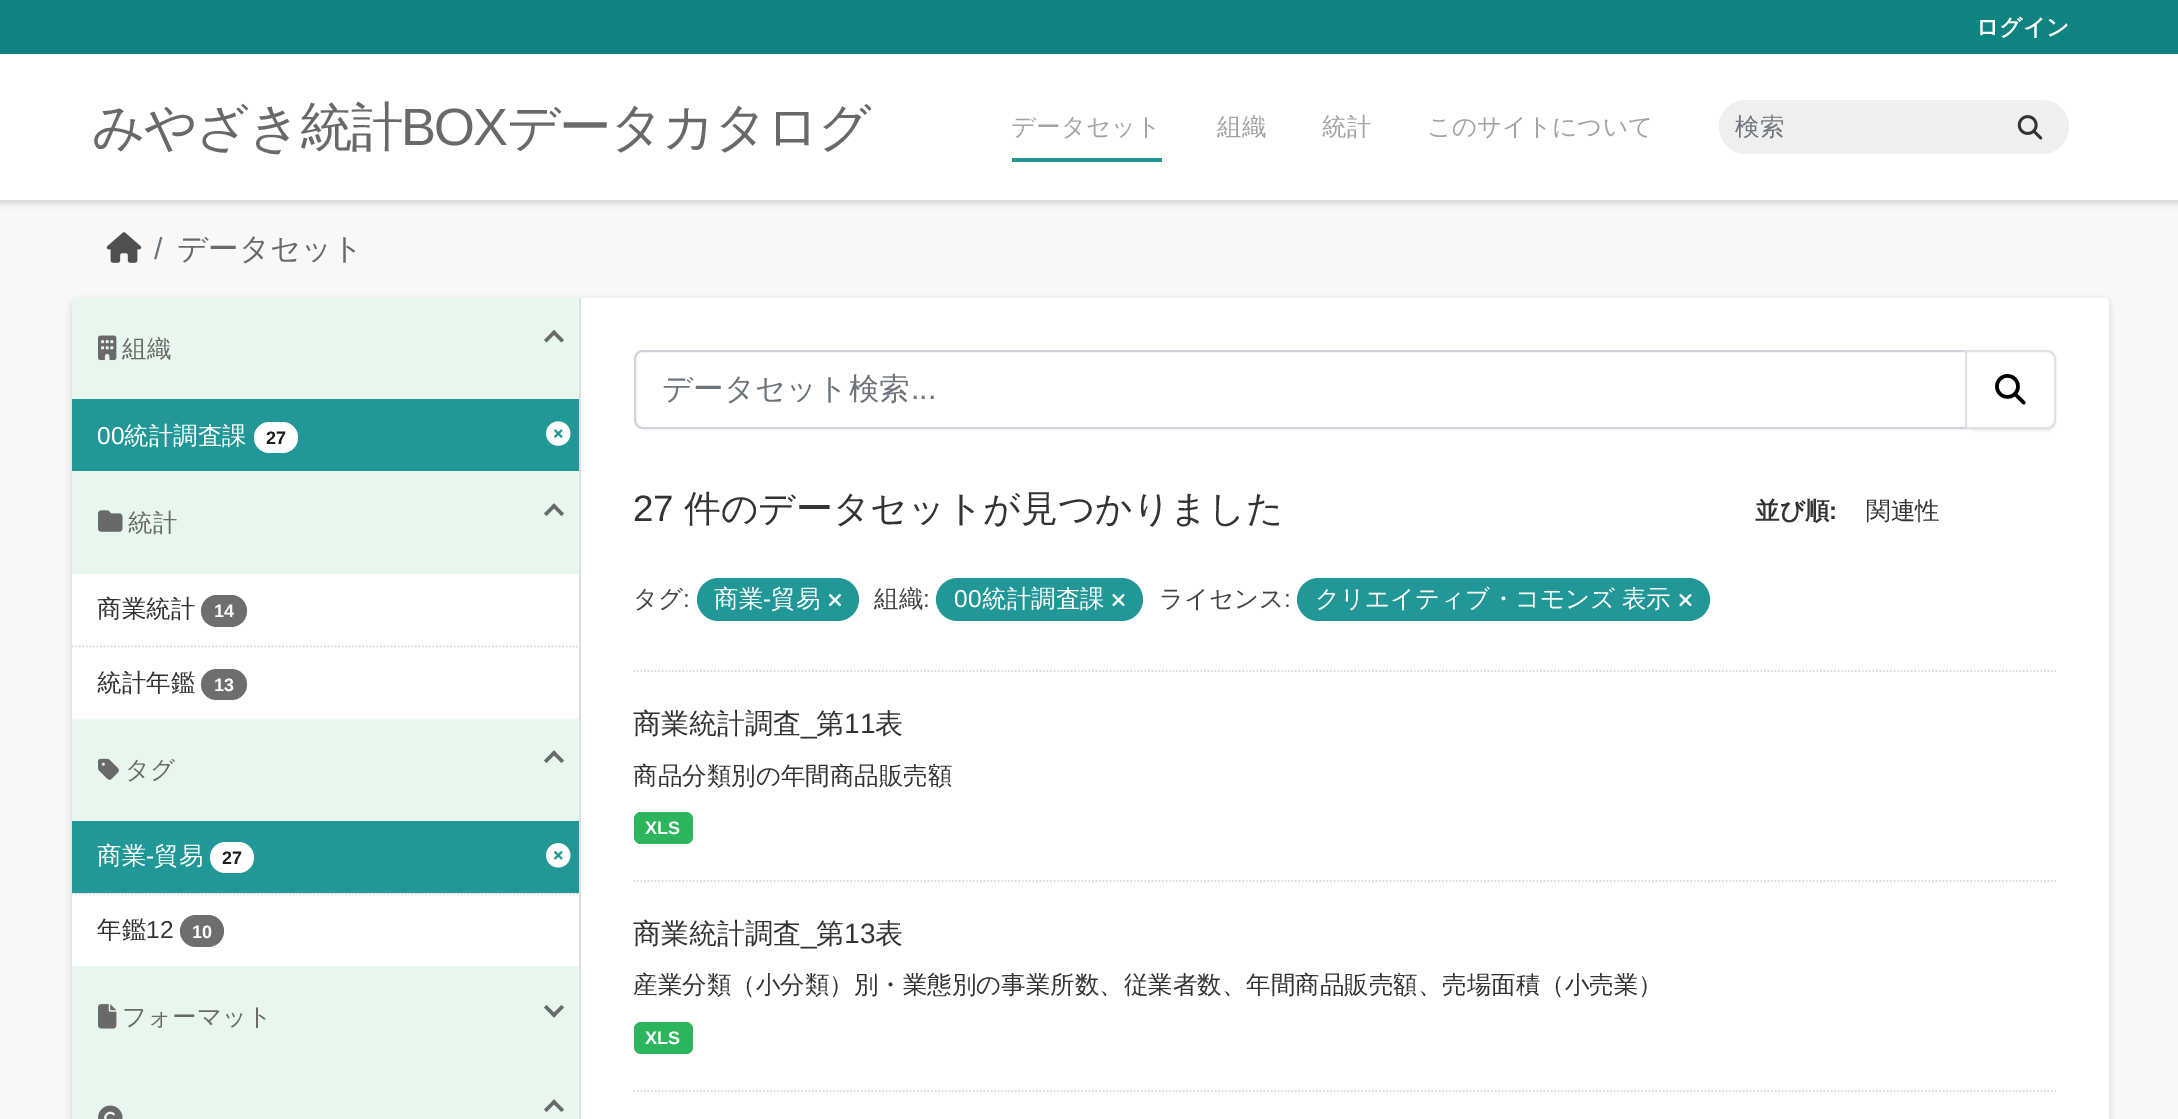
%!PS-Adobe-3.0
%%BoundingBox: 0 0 2178 1119
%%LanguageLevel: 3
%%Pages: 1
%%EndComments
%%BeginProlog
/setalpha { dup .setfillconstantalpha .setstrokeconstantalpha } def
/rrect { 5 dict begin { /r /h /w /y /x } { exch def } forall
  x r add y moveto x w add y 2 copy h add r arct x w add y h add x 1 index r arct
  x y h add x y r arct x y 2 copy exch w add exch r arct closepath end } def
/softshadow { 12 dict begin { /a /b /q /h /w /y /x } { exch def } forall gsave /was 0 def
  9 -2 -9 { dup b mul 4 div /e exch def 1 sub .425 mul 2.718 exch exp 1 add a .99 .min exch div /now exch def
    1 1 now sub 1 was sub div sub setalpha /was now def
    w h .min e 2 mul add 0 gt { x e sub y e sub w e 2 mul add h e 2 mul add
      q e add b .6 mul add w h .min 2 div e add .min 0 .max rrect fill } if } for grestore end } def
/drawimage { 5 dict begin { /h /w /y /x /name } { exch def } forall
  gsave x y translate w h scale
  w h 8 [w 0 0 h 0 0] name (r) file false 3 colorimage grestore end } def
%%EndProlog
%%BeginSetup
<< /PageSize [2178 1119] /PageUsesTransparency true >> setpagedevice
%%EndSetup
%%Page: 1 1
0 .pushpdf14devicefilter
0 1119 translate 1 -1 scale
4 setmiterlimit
0.059 0.514 0.51 setrgbcolor
0 0 2178 1119 rectfill
0.973 setgray
0 200 2178 919 rectfill
0 setgray
0 58 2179 145 0 3.5 0.16 softshadow
1 setgray
0 54 2178 146 rectfill
0.129 0.596 0.592 setrgbcolor
1012 158 150 4 rectfill
0.937 setgray
1719 100 350 54 27 rrect fill
(images/1.raw) 2017 115 26 25 drawimage
(images/2.raw) 106 232 36 31 drawimage
0 setgray
72 301 2037 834 5 3.5 0.16 softshadow
1 setgray
72 298 2037 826 5 rrect fill
0.906 0.969 0.933 setrgbcolor
newpath 77 298 moveto 579 298 lineto 579 399 lineto 72 399 lineto 72 303 lineto 72 300 74 298 77 298 curveto closepath fill
(images/3.raw) 98 335 19 26 drawimage
0.412 setgray
newpath 554 330 moveto 564 340 lineto 561.5 342.5 lineto 551.5 332.5 lineto closepath fill
newpath 554 330 moveto 556.5 332.5 lineto 546.5 342.5 lineto 544 340 lineto closepath fill
0.129 0.596 0.592 setrgbcolor
72 399 507 72 rectfill
1 setgray
254 422 44 31 15.5 rrect fill
(images/4.raw) 546 421 25 25 drawimage
0.906 0.969 0.933 setrgbcolor
72 471 507 103 rectfill
(images/5.raw) 98 510 25 22 drawimage
0.412 setgray
newpath 554 503.5 moveto 564 513.5 lineto 561.5 516 lineto 551.5 506 lineto closepath fill
newpath 554 503.5 moveto 556.5 506 lineto 546.5 516 lineto 544 513.5 lineto closepath fill
0.867 setgray
1.8 setlinewidth
[1.75 1.75] 0 setdash
newpath 72 646.5 moveto 579 646.5 lineto stroke
0.431 setgray
201 595 46 32 16 rrect fill
201 669 46 31 15.5 rrect fill
0.906 0.969 0.933 setrgbcolor
72 719 507 102 rectfill
0.412 setgray
newpath 554 750.5 moveto 564 760.5 lineto 561.5 763 lineto 551.5 753 lineto closepath fill
newpath 554 750.5 moveto 556.5 753 lineto 546.5 763 lineto 544 760.5 lineto closepath fill
(images/6.raw) 98 758 21 22 drawimage
0.965 setgray
73 893 506 1 rectfill
0.867 setgray
newpath 72 893.5 moveto 579 893.5 lineto stroke
0.129 0.596 0.592 setrgbcolor
72 821 507 72 rectfill
1 setgray
210 842 44 31 15.5 rrect fill
(images/7.raw) 546 843 25 25 drawimage
0.431 setgray
180 915 44 32 16 rrect fill
0.906 0.969 0.933 setrgbcolor
72 966 507 153 rectfill
(images/8.raw) 98 1004 19 25 drawimage
0.412 setgray
newpath 561.5 1005 moveto 564 1007.5 lineto 554 1017.5 lineto 551.5 1015 lineto closepath fill
newpath 546.5 1005 moveto 556.5 1015 lineto 554 1017.5 lineto 544 1007.5 lineto closepath fill
(images/9.raw) 98 1105 25 14 drawimage
newpath 554 1099.5 moveto 564 1109.5 lineto 561.5 1112 lineto 551.5 1102 lineto closepath fill
newpath 554 1099.5 moveto 556.5 1102 lineto 546.5 1112 lineto 544 1109.5 lineto closepath fill
0.867 setgray
579 298 2 821 rectfill
newpath 633.5 671 moveto 2056 671 lineto stroke
0.808 0.831 0.855 setrgbcolor
2 setlinewidth
[] 0 setdash
newpath 643 351 moveto 1966 351 lineto 1966 428 lineto 643 428 lineto 638.5 428 635 424.5 635 420 curveto 635 359 lineto 635 354.5 638.5 351 643 351 curveto closepath stroke
0 setgray
1965 352 91 79 9 1 0.07 softshadow
1 setgray
newpath 1966 351 moveto 2047 351 lineto 2051.5 351 2055 354.5 2055 359 curveto 2055 420 lineto 2055 424.5 2051.5 428 2047 428 curveto 1966 428 lineto closepath gsave fill grestore
0.871 0.886 0.902 setrgbcolor
stroke
(images/10.raw) 1995 374 31 31 drawimage
0.129 0.596 0.592 setrgbcolor
697 578 162 43 21.5 rrect fill
(images/11.raw) 829 594 12 12 drawimage
936 578 207 43 21.5 rrect fill
(images/12.raw) 1112 594 13 12 drawimage
1297 578 413 43 21.5 rrect fill
(images/12.raw) 1679 594 13 12 drawimage
0.867 setgray
1.8 setlinewidth
[1.75 1.75] 0 setdash
newpath 633.5 881 moveto 2056 881 lineto stroke
0.176 0.71 0.365 setrgbcolor
634 812 59 32 7 rrect fill
0.867 setgray
newpath 633.5 1091 moveto 2056 1091 lineto stroke
0.176 0.71 0.365 setrgbcolor
634 1022 59 32 7 rrect fill
/WenQuanYiZenHei-Bold [22.75 0 0 -22.75 0 0] selectfont
1 setgray
1976 35 moveto (ログイン) show
/WenQuanYiZenHei-Medium [52.5 0 0 -52.5 0 0] selectfont
0.412 setgray
92 145 moveto -1.75 0 (みやざき統計) ashow
/LiberationSans-Regular [52.5 0 0 -52.5 0 0] selectfont
401 145 moveto -1.75 0 (BOX) ashow
/WenQuanYiZenHei-Medium [52.5 0 0 -52.5 0 0] selectfont
507 145 moveto -1.75 0 (データカタログ) ashow
/WenQuanYiZenHei-Medium [24.5 0 0 -24.5 0 0] selectfont
0.639 setgray
1011 135 moveto (データセット) show
1217 135 moveto (組織) show
1322 135 moveto (統計) show
1427 135 moveto (このサイトについて) show
0.424 0.459 0.49 setrgbcolor
1735 135 moveto (検索) show
/LiberationSans-Regular [30.5 0 0 -30.5 0 0] selectfont
154 259 moveto (/) show
/WenQuanYiZenHei-Medium [30.5 0 0 -30.5 0 0] selectfont
0.412 setgray
177 259 moveto (データセット) show
/WenQuanYiZenHei-Medium [24.5 0 0 -24.5 0 0] selectfont
122 357 moveto (組織) show
/LiberationSans-Regular [24.5 0 0 -24.5 0 0] selectfont
1 setgray
97 444 moveto (00) show
/WenQuanYiZenHei-Medium [24.5 0 0 -24.5 0 0] selectfont
124 444 moveto (統計調査課) show
/LiberationSans-Bold [18 0 0 -18 0 0] selectfont
0.118 setgray
266 444 moveto (27) show
/WenQuanYiZenHei-Medium [24.5 0 0 -24.5 0 0] selectfont
0.412 setgray
128 531 moveto (統計) show
0.2 setgray
97 617 moveto (商業統計) show
/LiberationSans-Bold [18 0 0 -18 0 0] selectfont
1 setgray
214 617 moveto (14) show
/WenQuanYiZenHei-Medium [24.5 0 0 -24.5 0 0] selectfont
0.2 setgray
97 691 moveto (統計年鑑) show
/LiberationSans-Bold [18 0 0 -18 0 0] selectfont
1 setgray
214 691 moveto (13) show
/WenQuanYiZenHei-Medium [24.5 0 0 -24.5 0 0] selectfont
0.412 setgray
125 778 moveto (タグ) show
1 setgray
97 864 moveto (商業) show
/LiberationSans-Regular [24.5 0 0 -24.5 0 0] selectfont
146 864 moveto (-) show
/WenQuanYiZenHei-Medium [24.5 0 0 -24.5 0 0] selectfont
154 864 moveto (貿易) show
/LiberationSans-Bold [18 0 0 -18 0 0] selectfont
0.118 setgray
222 864 moveto (27) show
/WenQuanYiZenHei-Medium [24.5 0 0 -24.5 0 0] selectfont
0.2 setgray
97 938 moveto (年鑑) show
/LiberationSans-Regular [24.5 0 0 -24.5 0 0] selectfont
146 938 moveto (12) show
/LiberationSans-Bold [18 0 0 -18 0 0] selectfont
1 setgray
192 938 moveto (10) show
/WenQuanYiZenHei-Medium [24.5 0 0 -24.5 0 0] selectfont
0.412 setgray
122 1025 moveto (フォーマット) show
/WenQuanYiZenHei-Medium [30.5 0 0 -30.5 0 0] selectfont
0.424 0.459 0.49 setrgbcolor
662 399 moveto (データセット検索) show
/LiberationSans-Regular [30.5 0 0 -30.5 0 0] selectfont
911 399 moveto (...) show
/LiberationSans-Regular [36.75 0 0 -36.75 0 0] selectfont
0.2 setgray
633 521 moveto (27) show
/WenQuanYiZenHei-Medium [36.75 0 0 -36.75 0 0] selectfont
684 521 moveto (件のデータセットが見つかりました) show
/WenQuanYiZenHei-Bold [24.5 0 0 -24.5 0 0] selectfont
1755 519 moveto (並び順) show
/LiberationSans-Bold [24.5 0 0 -24.5 0 0] selectfont
1829 519 moveto (:) show
/WenQuanYiZenHei-Medium [24.5 0 0 -24.5 0 0] selectfont
1866 519 moveto (関連性) show
0.267 setgray
633 607 moveto (タグ) show
/LiberationSans-Regular [24.5 0 0 -24.5 0 0] selectfont
683 607 moveto (:) show
/WenQuanYiZenHei-Medium [24.5 0 0 -24.5 0 0] selectfont
1 setgray
714 607 moveto (商業) show
/LiberationSans-Regular [24.5 0 0 -24.5 0 0] selectfont
763 607 moveto (-) show
/WenQuanYiZenHei-Medium [24.5 0 0 -24.5 0 0] selectfont
771 607 moveto (貿易) show
0.267 setgray
874 607 moveto (組織) show
/LiberationSans-Regular [24.5 0 0 -24.5 0 0] selectfont
923 607 moveto (:) show
1 setgray
954 607 moveto (00) show
/WenQuanYiZenHei-Medium [24.5 0 0 -24.5 0 0] selectfont
982 607 moveto (統計調査課) show
0.267 setgray
1159 607 moveto (ライセンス) show
/LiberationSans-Regular [24.5 0 0 -24.5 0 0] selectfont
1284 607 moveto (:) show
/WenQuanYiZenHei-Medium [24.5 0 0 -24.5 0 0] selectfont
1 setgray
1315 607 moveto -1 0 32 (クリエイティブ・コモンズ 表示) widthshow
/WenQuanYiZenHei-Medium [28 0 0 -28 0 0] selectfont
0.2 setgray
633 733 moveto (商業統計調査) show
816 733 moveto (第) show
/LiberationSans-Regular [28 0 0 -28 0 0] selectfont
844 733 moveto (11) show
/WenQuanYiZenHei-Medium [28 0 0 -28 0 0] selectfont
875 733 moveto (表) show
/LiberationSans-Regular [28 0 0 -28 0 0] selectfont
801 733 moveto (_) show
/WenQuanYiZenHei-Medium [24.5 0 0 -24.5 0 0] selectfont
633 784 moveto (商品分類別の年間商品販売額) show
/LiberationSans-Bold [18 0 0 -18 0 0] selectfont
1 setgray
645 834 moveto (XLS) show
/WenQuanYiZenHei-Medium [28 0 0 -28 0 0] selectfont
0.2 setgray
633 943 moveto (商業統計調査) show
816 943 moveto (第) show
/LiberationSans-Regular [28 0 0 -28 0 0] selectfont
844 943 moveto (13) show
/WenQuanYiZenHei-Medium [28 0 0 -28 0 0] selectfont
875 943 moveto (表) show
/LiberationSans-Regular [28 0 0 -28 0 0] selectfont
801 943 moveto (_) show
/WenQuanYiZenHei-Medium [24.5 0 0 -24.5 0 0] selectfont
633 993 moveto (産業分類（小分類）別・業態別の事業所数、従業者数、年間商品販売額、売場面積（小売業）) show
/LiberationSans-Bold [18 0 0 -18 0 0] selectfont
1 setgray
645 1044 moveto (XLS) show
.poppdf14devicefilter showpage
%%EOF
